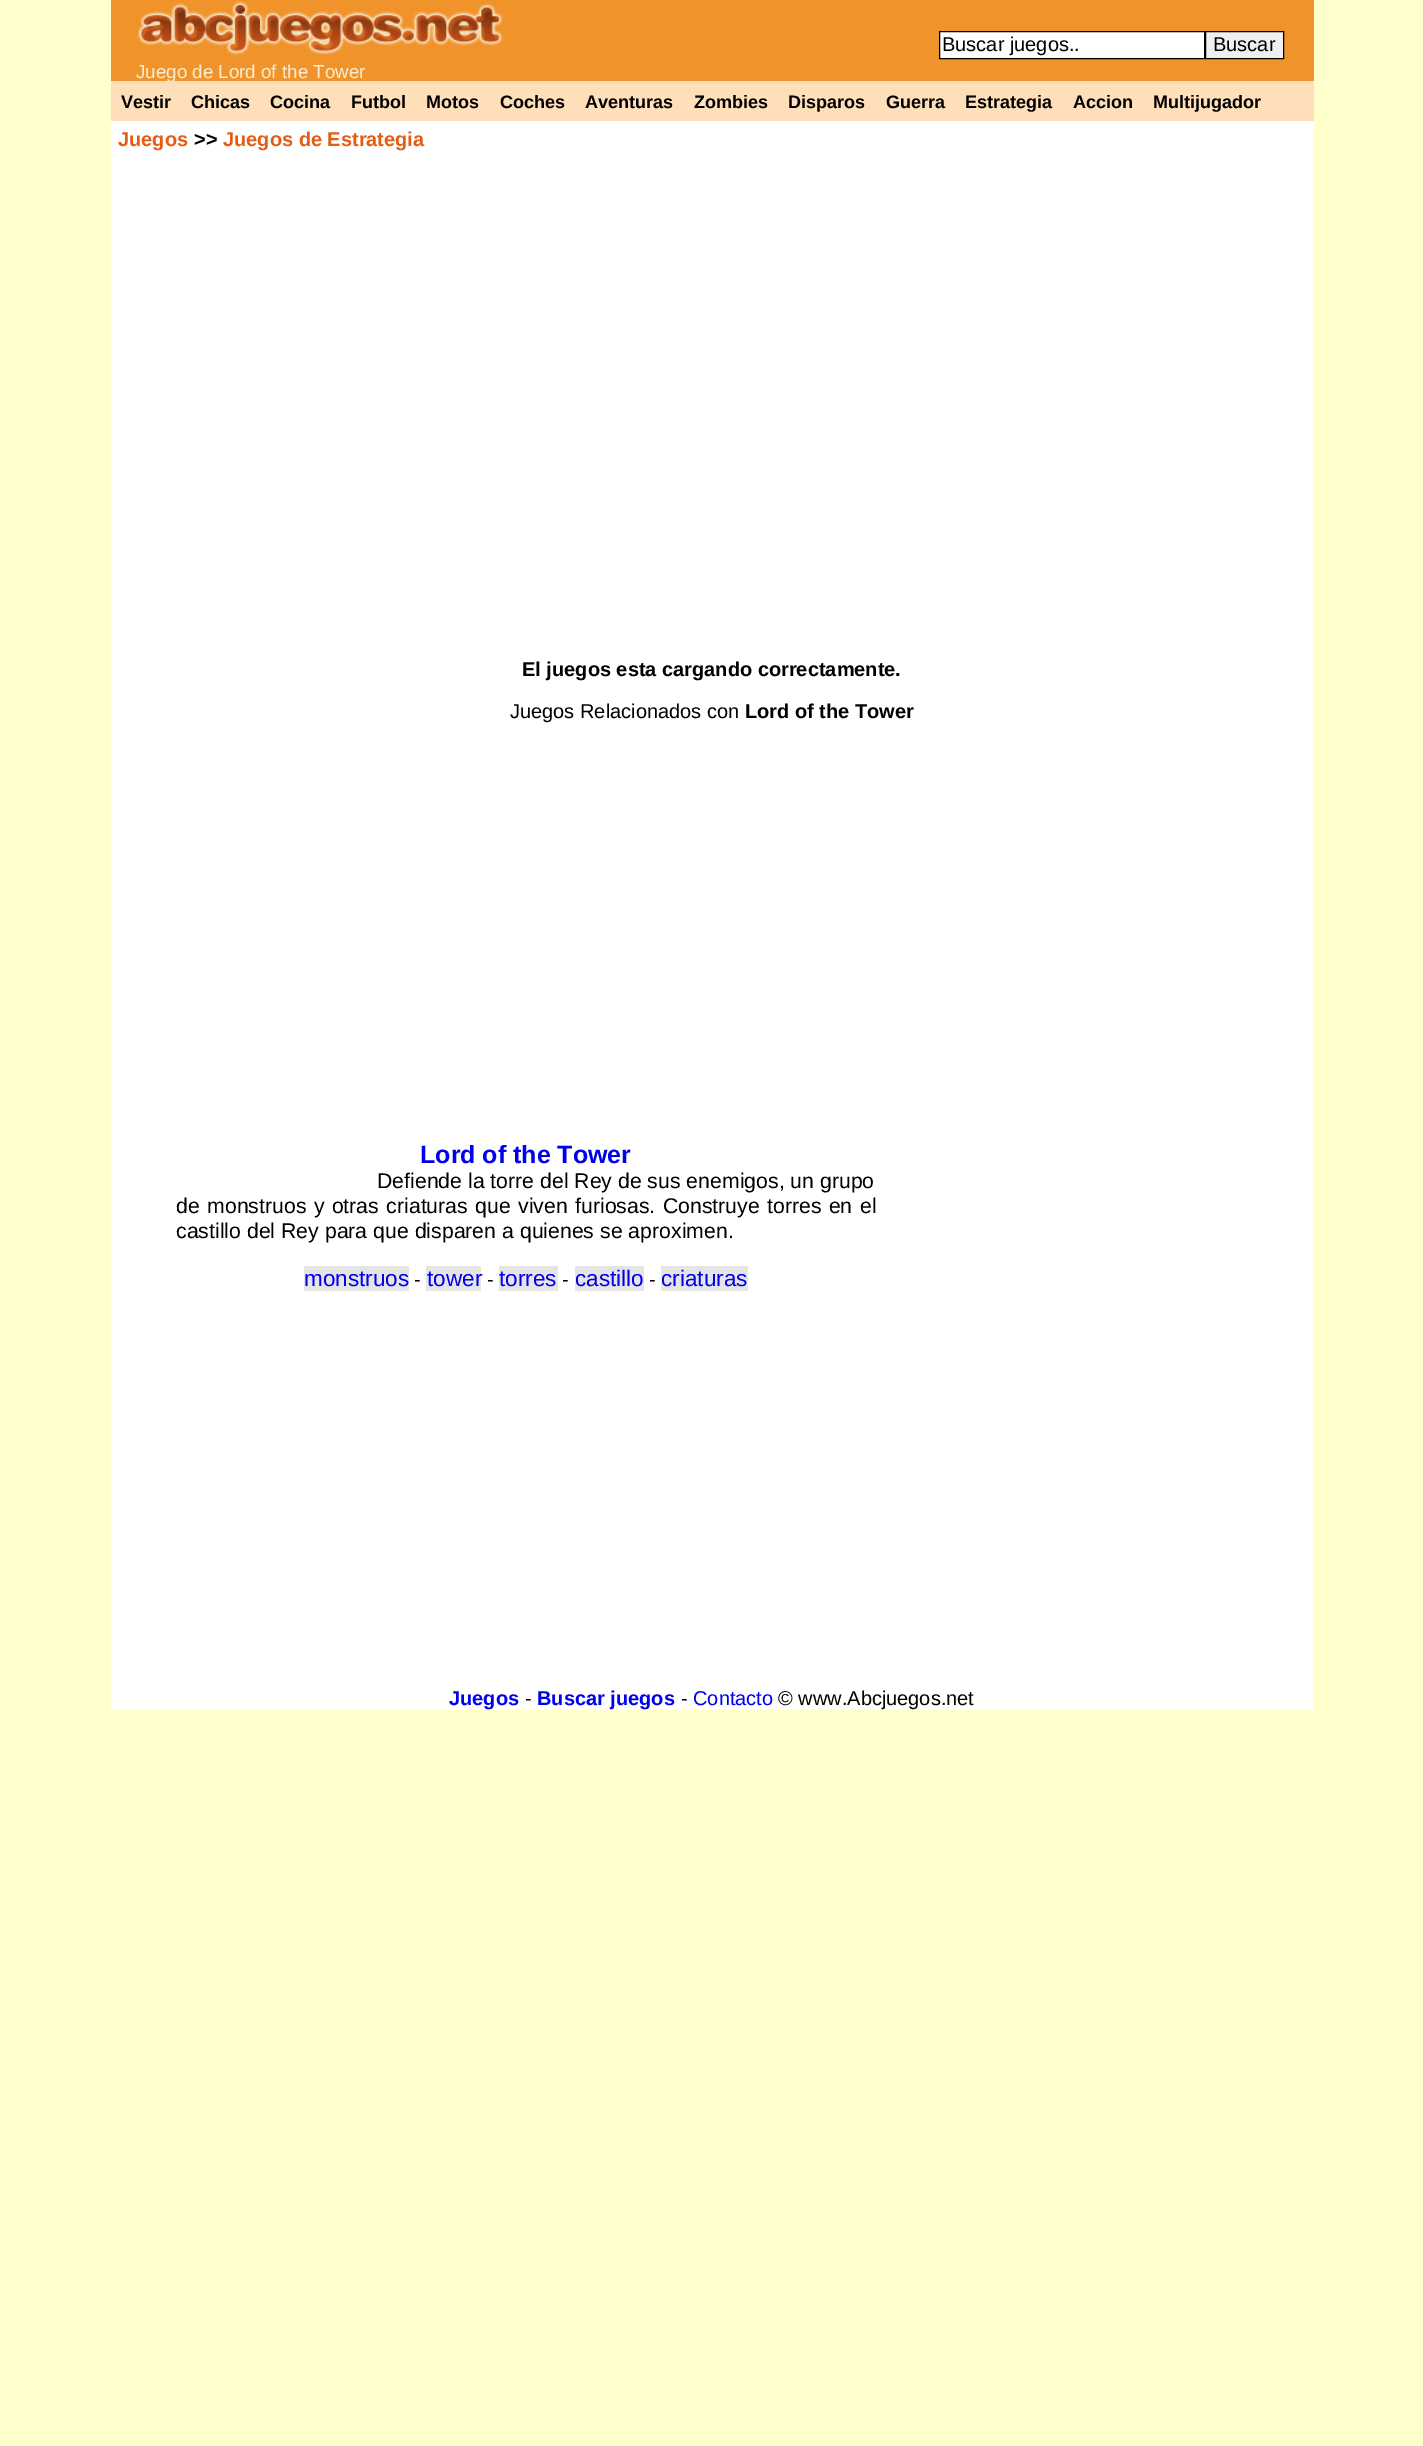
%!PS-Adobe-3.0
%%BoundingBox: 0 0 1423 2446
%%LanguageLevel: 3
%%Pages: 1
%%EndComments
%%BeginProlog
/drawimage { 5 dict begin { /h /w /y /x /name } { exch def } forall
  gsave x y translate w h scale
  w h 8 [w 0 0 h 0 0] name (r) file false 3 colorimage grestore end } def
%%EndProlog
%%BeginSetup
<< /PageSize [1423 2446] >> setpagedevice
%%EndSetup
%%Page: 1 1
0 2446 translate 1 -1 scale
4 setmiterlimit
1 1 0.8 setrgbcolor
0 0 1423 2446 rectfill
0.941 0.576 0.169 setrgbcolor
111 0 1203 81 rectfill
1 setgray
newpath 939.5 31.5 moveto 1204.5 31.5 lineto 1204.5 58.5 lineto 939.5 58.5 lineto closepath gsave fill grestore
0 setgray
stroke
0.937 setgray
newpath 1205.5 31.5 moveto 1283.5 31.5 lineto 1283.5 58.5 lineto 1205.5 58.5 lineto closepath gsave fill grestore
0 setgray
stroke
(images/1.raw) 137 1 366 54 drawimage
1 setgray
111 121 1203 1589 rectfill
0.898 setgray
304 1266 105 25 rectfill
426 1266 55 25 rectfill
499 1266 59 25 rectfill
575 1266 69 25 rectfill
661 1266 87 25 rectfill
/LiberationSans-Regular [20 0 0 -20 0 0] selectfont
0 setgray
942 51 moveto (Buscar juegos..) show
1213 51 moveto (Buscar) show
/LiberationSans-Regular [18.75 0 0 -18.75 0 0] selectfont
0.973 0.925 0.824 setrgbcolor
136 78 moveto (Juego de Lord of the Tower) show
1 0.871 0.729 setrgbcolor
111 81 1203 40 rectfill
/LiberationSans-Bold [18 0 0 -18 0 0] selectfont
0 setgray
121 108 moveto (Vestir) show
191 108 moveto (Chicas) show
270 108 moveto (Cocina) show
351 108 moveto (Futbol) show
426 108 moveto (Motos) show
500 108 moveto (Coches) show
585 108 moveto (Aventuras) show
694 108 moveto (Zombies) show
788 108 moveto (Disparos) show
886 108 moveto (Guerra) show
965 108 moveto (Estrategia) show
1073 108 moveto (Accion) show
1153 108 moveto (Multijugador) show
/LiberationSans-Bold [20 0 0 -20 0 0] selectfont
0.898 0.365 0.075 setrgbcolor
118 146 moveto (Juegos) show
0 setgray
194 146 moveto (>>) show
0.898 0.365 0.075 setrgbcolor
223 146 moveto (Juegos de Estrategia) show
0 setgray
522 676 moveto (El juegos esta cargando correctamente.) show
/LiberationSans-Regular [20 0 0 -20 0 0] selectfont
510 718 moveto (Juegos Relacionados con) show
/LiberationSans-Bold [20 0 0 -20 0 0] selectfont
745 718 moveto (Lord of the Tower) show
/LiberationSans-Bold [25 0 0 -25 0 0] selectfont
0 0 0.933 setrgbcolor
420 1163 moveto (Lord of the Tower) show
/LiberationSans-Regular [21.25 0 0 -21.25 0 0] selectfont
0 setgray
377 1188 moveto (Defiende la torre del Rey de sus enemigos, un grupo) show
176 1213 moveto 1.5 0 32 (de monstruos y otras criaturas que viven furiosas. Construye torres en el) widthshow
176 1238 moveto (castillo del Rey para que disparen a quienes se aproximen.) show
/LiberationSans-Regular [22.5 0 0 -22.5 0 0] selectfont
0 0 0.933 setrgbcolor
304 1286 moveto (monstruos) show
/LiberationSans-Regular [20 0 0 -20 0 0] selectfont
0 setgray
414 1286 moveto (-) show
/LiberationSans-Regular [22.5 0 0 -22.5 0 0] selectfont
0 0 0.933 setrgbcolor
427 1286 moveto (tower) show
/LiberationSans-Regular [20 0 0 -20 0 0] selectfont
0 setgray
487 1286 moveto (-) show
/LiberationSans-Regular [22.5 0 0 -22.5 0 0] selectfont
0 0 0.933 setrgbcolor
499 1286 moveto (torres) show
/LiberationSans-Regular [20 0 0 -20 0 0] selectfont
0 setgray
562 1286 moveto (-) show
/LiberationSans-Regular [22.5 0 0 -22.5 0 0] selectfont
0 0 0.933 setrgbcolor
575 1286 moveto (castillo) show
/LiberationSans-Regular [20 0 0 -20 0 0] selectfont
0 setgray
649 1286 moveto (-) show
/LiberationSans-Regular [22.5 0 0 -22.5 0 0] selectfont
0 0 0.933 setrgbcolor
661 1286 moveto (criaturas) show
/LiberationSans-Bold [20 0 0 -20 0 0] selectfont
449 1705 moveto (Juegos) show
/LiberationSans-Regular [20 0 0 -20 0 0] selectfont
0 setgray
525 1705 moveto (-) show
/LiberationSans-Bold [20 0 0 -20 0 0] selectfont
0 0 0.933 setrgbcolor
537 1705 moveto (Buscar juegos) show
/LiberationSans-Regular [20 0 0 -20 0 0] selectfont
0 setgray
681 1705 moveto (-) show
0 0 0.933 setrgbcolor
693 1705 moveto (Contacto) show
0 setgray
778 1705 moveto (© www.Abcjuegos.net) show
showpage
%%EOF
